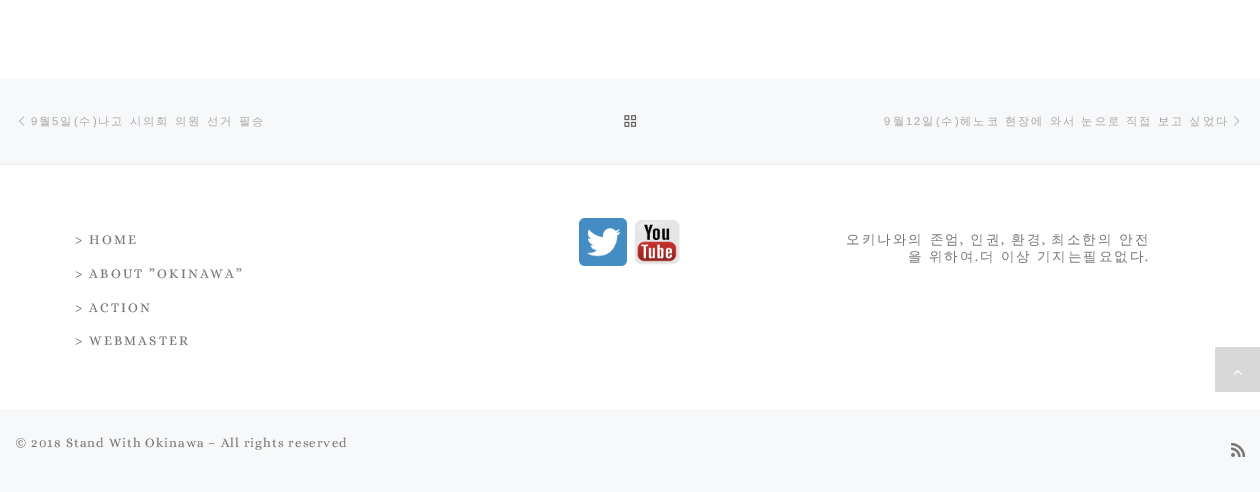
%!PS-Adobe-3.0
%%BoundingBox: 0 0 1260 492
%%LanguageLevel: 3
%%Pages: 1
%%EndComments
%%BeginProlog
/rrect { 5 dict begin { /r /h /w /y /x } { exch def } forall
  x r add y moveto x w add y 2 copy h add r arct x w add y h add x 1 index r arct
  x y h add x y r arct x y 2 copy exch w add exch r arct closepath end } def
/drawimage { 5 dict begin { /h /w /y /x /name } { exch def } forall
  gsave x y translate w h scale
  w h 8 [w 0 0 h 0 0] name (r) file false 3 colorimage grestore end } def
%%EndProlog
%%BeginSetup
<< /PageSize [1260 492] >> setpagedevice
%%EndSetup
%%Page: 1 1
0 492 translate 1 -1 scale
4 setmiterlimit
1 setgray
0 0 1260 492 rectfill
0.969 0.973 0.976 setrgbcolor
0 79 1260 85 rectfill
(images/1.raw) 19 116 6 10 drawimage
(images/2.raw) 624 115 13 12 drawimage
(images/3.raw) 1234 116 6 10 drawimage
0.925 0.933 0.937 setrgbcolor
0 164 1260 1 rectfill
(images/4.raw) 579 218 48 48 drawimage
(images/5.raw) 634 219 46 46 drawimage
0.969 0.973 0.976 setrgbcolor
0 409 1260 83 rectfill
(images/6.raw) 1231 442 15 15 drawimage
0.847 setgray
1215 347 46 45 2 rrect fill
(images/7.raw) 1233 370 9 5 drawimage
/LiberationSans-Regular [11.25 0 0 -11.25 0 0] selectfont
0.663 0.663 0.667 setrgbcolor
31 125 moveto 2 0 (9) ashow
/WenQuanYiZenHei-Medium [11.25 0 0 -11.25 0 0] selectfont
39 125 moveto 2 0 (월) ashow
/LiberationSans-Regular [11.25 0 0 -11.25 0 0] selectfont
52 125 moveto 2 0 (5) ashow
/WenQuanYiZenHei-Medium [11.25 0 0 -11.25 0 0] selectfont
60 125 moveto 2 0 (일) ashow
/LiberationSans-Regular [11.25 0 0 -11.25 0 0] selectfont
74 125 moveto 2 0 (\() ashow
/WenQuanYiZenHei-Medium [11.25 0 0 -11.25 0 0] selectfont
79 125 moveto 2 0 (수) ashow
/LiberationSans-Regular [11.25 0 0 -11.25 0 0] selectfont
93 125 moveto 2 0 (\)) ashow
/WenQuanYiZenHei-Medium [11.25 0 0 -11.25 0 0] selectfont
98 125 moveto 2 0 (나고 시의회 의원 선거 필승) ashow
/LiberationSans-Regular [11.25 0 0 -11.25 0 0] selectfont
884 125 moveto 2 0 (9) ashow
/WenQuanYiZenHei-Medium [11.25 0 0 -11.25 0 0] selectfont
893 125 moveto 2 0 (월) ashow
/LiberationSans-Regular [11.25 0 0 -11.25 0 0] selectfont
906 125 moveto 2 0 (12) ashow
/WenQuanYiZenHei-Medium [11.25 0 0 -11.25 0 0] selectfont
922 125 moveto 2 0 (일) ashow
/LiberationSans-Regular [11.25 0 0 -11.25 0 0] selectfont
936 125 moveto 2 0 (\() ashow
/WenQuanYiZenHei-Medium [11.25 0 0 -11.25 0 0] selectfont
941 125 moveto 2 0 (수) ashow
/LiberationSans-Regular [11.25 0 0 -11.25 0 0] selectfont
955 125 moveto 2 0 (\)) ashow
/WenQuanYiZenHei-Medium [11.25 0 0 -11.25 0 0] selectfont
960 125 moveto -0.25 0 32 2 0 (헤노코 현장에 와서 눈으로 직접 보고 싶었다) awidthshow
/Alice-Regular [13.5 0 0 -13.5 0 0] selectfont
0.467 setgray
75 244 moveto 2 0 (> HOME) ashow
75 278 moveto 2 0 (> ABOUT ”OKINAWA”) ashow
75 312 moveto 2 0 (> ACTION) ashow
75 345 moveto 2 0 (> WEBMASTER) ashow
/WenQuanYiZenHei-Medium [13.5 0 0 -13.5 0 0] selectfont
846 244 moveto 2 0 (오키나와의 존엄) ashow
/Alice-Regular [13.5 0 0 -13.5 0 0] selectfont
960 244 moveto 2 0 (,) ashow
/WenQuanYiZenHei-Medium [13.5 0 0 -13.5 0 0] selectfont
970 244 moveto 2 0 (인권) ashow
/Alice-Regular [13.5 0 0 -13.5 0 0] selectfont
1001 244 moveto 2 0 (,) ashow
/WenQuanYiZenHei-Medium [13.5 0 0 -13.5 0 0] selectfont
1011 244 moveto 2 0 (환경) ashow
/Alice-Regular [13.5 0 0 -13.5 0 0] selectfont
1042 244 moveto 2 0 (,) ashow
/WenQuanYiZenHei-Medium [13.5 0 0 -13.5 0 0] selectfont
1051 244 moveto 2 0 (최소한의 안전) ashow
908 261 moveto -1 0 32 2 0 (을 위하여) awidthshow
/Alice-Regular [13.5 0 0 -13.5 0 0] selectfont
975 261 moveto 2 0 (.) ashow
/WenQuanYiZenHei-Medium [13.5 0 0 -13.5 0 0] selectfont
980 261 moveto -1 0 32 2 0 (더 이상 기지는필요없다) awidthshow
/Alice-Regular [13.5 0 0 -13.5 0 0] selectfont
1145 261 moveto 2 0 (.) ashow
/Alice-Regular [13.1 0 0 -13.1 0 0] selectfont
15 447 moveto 1 0 (© 2018 Stand With Okinawa – All rights reserved) ashow
showpage
%%EOF
